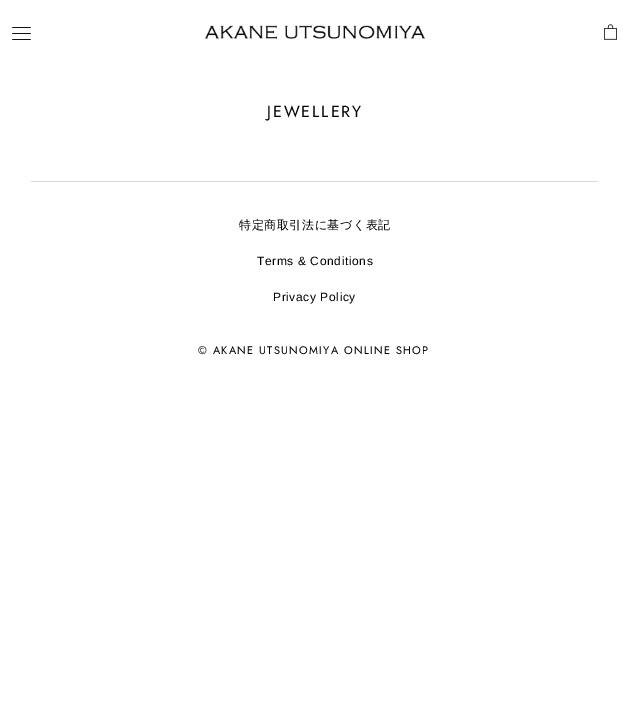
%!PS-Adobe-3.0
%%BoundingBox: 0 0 629 706
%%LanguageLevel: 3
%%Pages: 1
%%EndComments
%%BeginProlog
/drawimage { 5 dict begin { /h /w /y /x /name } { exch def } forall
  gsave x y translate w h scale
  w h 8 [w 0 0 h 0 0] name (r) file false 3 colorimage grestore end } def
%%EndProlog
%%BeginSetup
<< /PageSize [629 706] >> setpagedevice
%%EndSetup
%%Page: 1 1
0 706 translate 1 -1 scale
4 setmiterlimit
1 setgray
0 0 629 706 rectfill
(images/1.raw) 12 27 19 13 drawimage
(images/2.raw) 205 25 220 14 drawimage
(images/3.raw) 604 24 13 16 drawimage
0.851 setgray
31 181 567 1 rectfill
/Jost-Regular [16 0 0 -16 0 0] selectfont
0 setgray
267 117 moveto 2 0 (JEWELLERY) ashow
/WenQuanYiZenHei-Medium [12 0 0 -12 0 0] selectfont
239 229 moveto 0.6 0 (特定商取引法に基づく表記) ashow
/LiberationSans-Regular [12 0 0 -12 0 0] selectfont
257 265 moveto 0.6 0 (Terms & Conditions) ashow
273 301 moveto 0.6 0 (Privacy Policy) ashow
/Jost-Regular [11 0 0 -11 0 0] selectfont
198 354 moveto 1.3 0 (© AKANE UTSUNOMIYA ONLINE SHOP) ashow
showpage
%%EOF
